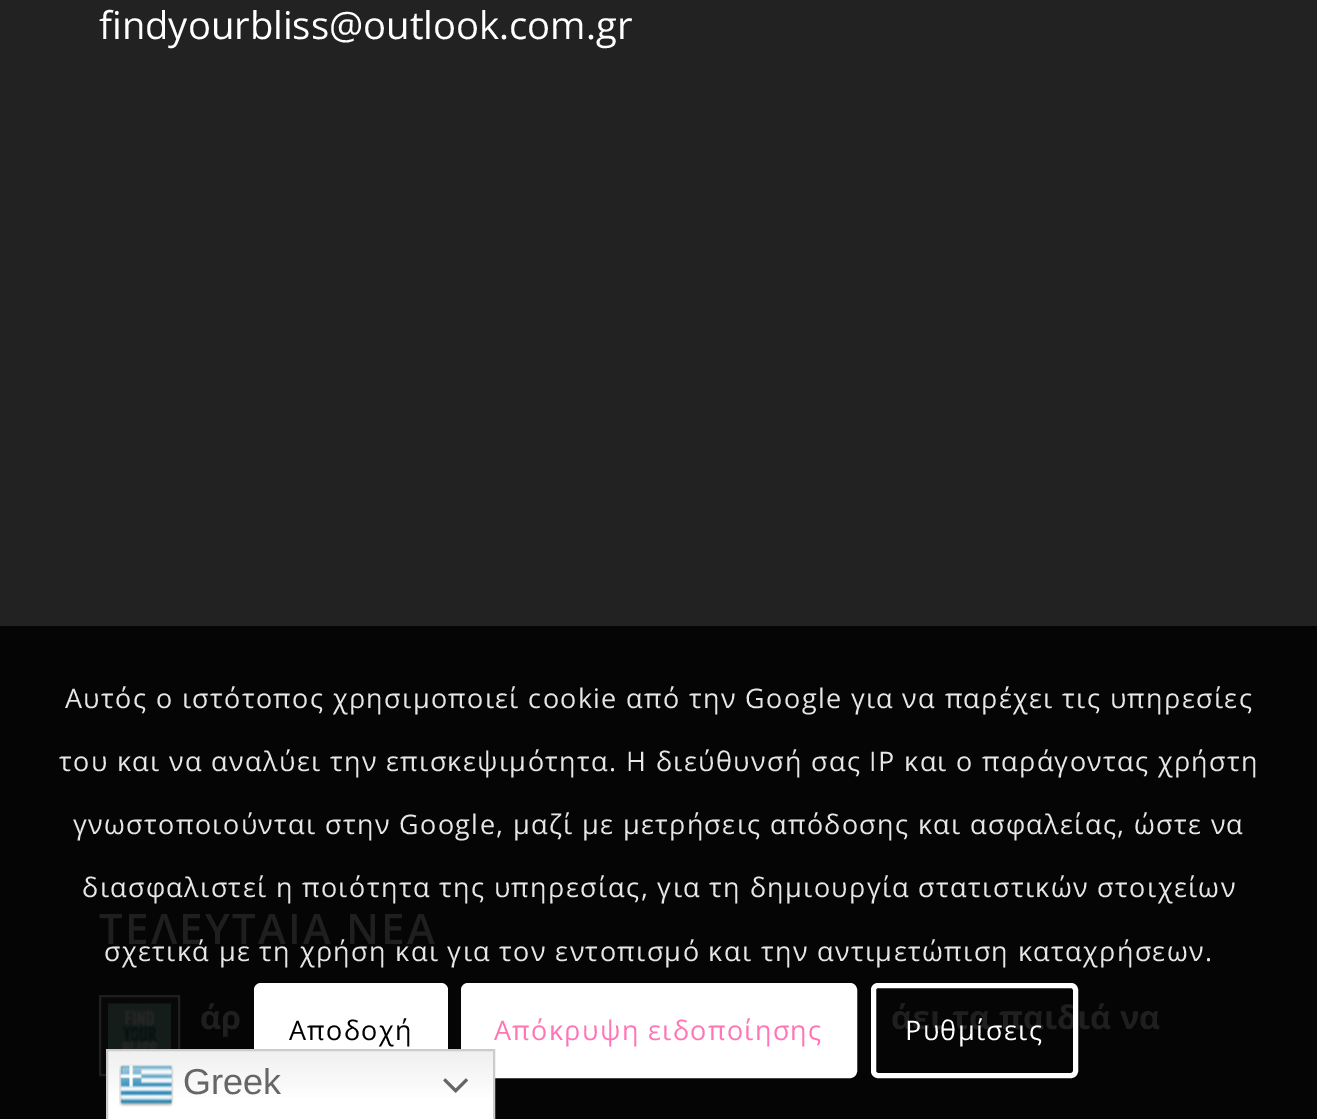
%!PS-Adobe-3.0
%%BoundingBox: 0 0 1317 1119
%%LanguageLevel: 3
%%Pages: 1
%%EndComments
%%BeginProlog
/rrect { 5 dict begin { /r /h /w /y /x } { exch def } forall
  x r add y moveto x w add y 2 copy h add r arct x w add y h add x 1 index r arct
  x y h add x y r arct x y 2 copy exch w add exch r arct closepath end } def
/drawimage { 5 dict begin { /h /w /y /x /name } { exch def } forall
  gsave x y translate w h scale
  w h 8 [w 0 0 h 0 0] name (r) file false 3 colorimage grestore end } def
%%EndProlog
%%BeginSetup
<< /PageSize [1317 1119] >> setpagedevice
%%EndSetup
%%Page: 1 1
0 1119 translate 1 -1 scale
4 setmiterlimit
0.133 setgray
0 0 1317 1119 rectfill
0.02 setgray
0 626 1317 493 rectfill
0.031 setgray
newpath 100 996 moveto 179 996 lineto 179 1075 lineto 100 1075 lineto closepath gsave fill grestore
0.125 0.122 0.125 setrgbcolor
2 setlinewidth
stroke
(images/1.raw) 108 1003 63 46 drawimage
1 setgray
254 983 194 95 7 rrect fill
463.5 985.5 391 90 4.5 rrect gsave fill grestore
5 setlinewidth
stroke
gsave newpath 108 1051 moveto 493 1051 lineto 493 1119 lineto 108 1119 lineto closepath clip newpath
<< /ShadingType 2 /ColorSpace /DeviceRGB /Coords [300 1049 300 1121] /Extend [true true] /Function << /FunctionType 3 /Domain [0 1] /Functions [<< /FunctionType 2 /Domain [0 1] /C0 [0.937 0.937 0.937] /C1 [1 1 1] /N 1 >> << /FunctionType 2 /Domain [0 1] /C0 [1 1 1] /C1 [1 1 1] /N 1 >>] /Bounds [0.7] /Encode [0 1 0 1] >> >> shfill grestore
0.8 setgray
2 setlinewidth
107 1050 387 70 rectstroke
(images/2.raw) 119 1064 55 43 drawimage
(images/3.raw) 443 1078 25 15 drawimage
/OpenSans-Regular [38.25 0 0 -38.25 0 0] selectfont
1 setgray
99 39 moveto (findyourbliss@outlook.com.gr) show
/OpenSans-SemiBold [42 0 0 -42 0 0] selectfont
0.125 0.122 0.125 setrgbcolor
99 944 moveto 2.25 0 (ΤΕΛΕΥΤΑΙΑ ΝΕΑ) ashow
/OpenSans-Bold [32.5 0 0 -32.5 0 0] selectfont
200 1029 moveto (άρ) show
891 1029 moveto (άει τα παιδιά να) show
/OpenSans-Regular [27 0 0 -27 0 0] selectfont
0.902 setgray
65 708 moveto 1.35 0 (Αυτός ο ιστότοπος χρησιμοποιεί cookie από την Google για να παρέχει τις υπηρεσίες) ashow
59 771 moveto 1.35 0 (του και να αναλύει την επισκεψιμότητα. Η διεύθυνσή σας IP και ο παράγοντας χρήστη) ashow
73 834 moveto 1.35 0 (γνωστοποιούνται στην Google, μαζί με μετρήσεις απόδοσης και ασφαλείας, ώστε να) ashow
82 897 moveto 1.35 0 (διασφαλιστεί η ποιότητα της υπηρεσίας, για τη δημιουργία στατιστικών στοιχείων) ashow
104 961 moveto 1.35 0 (σχετικά με τη χρήση και για τον εντοπισμό και την αντιμετώπιση καταχρήσεων.) ashow
0 setgray
289 1040 moveto 1.35 0 (Αποδοχή) ashow
1 0.459 0.71 setrgbcolor
494 1040 moveto 1.35 0 (Απόκρυψη ειδοποίησης) ashow
1 setgray
5 setlinewidth
873.5 985.5 202 90 4.5 rrect stroke
905 1040 moveto 1.35 0 (Ρυθμίσεις) ashow
/LiberationSans-Regular [36 0 0 -36 0 0] selectfont
0.4 setgray
183 1094 moveto (Greek) show
showpage
%%EOF
